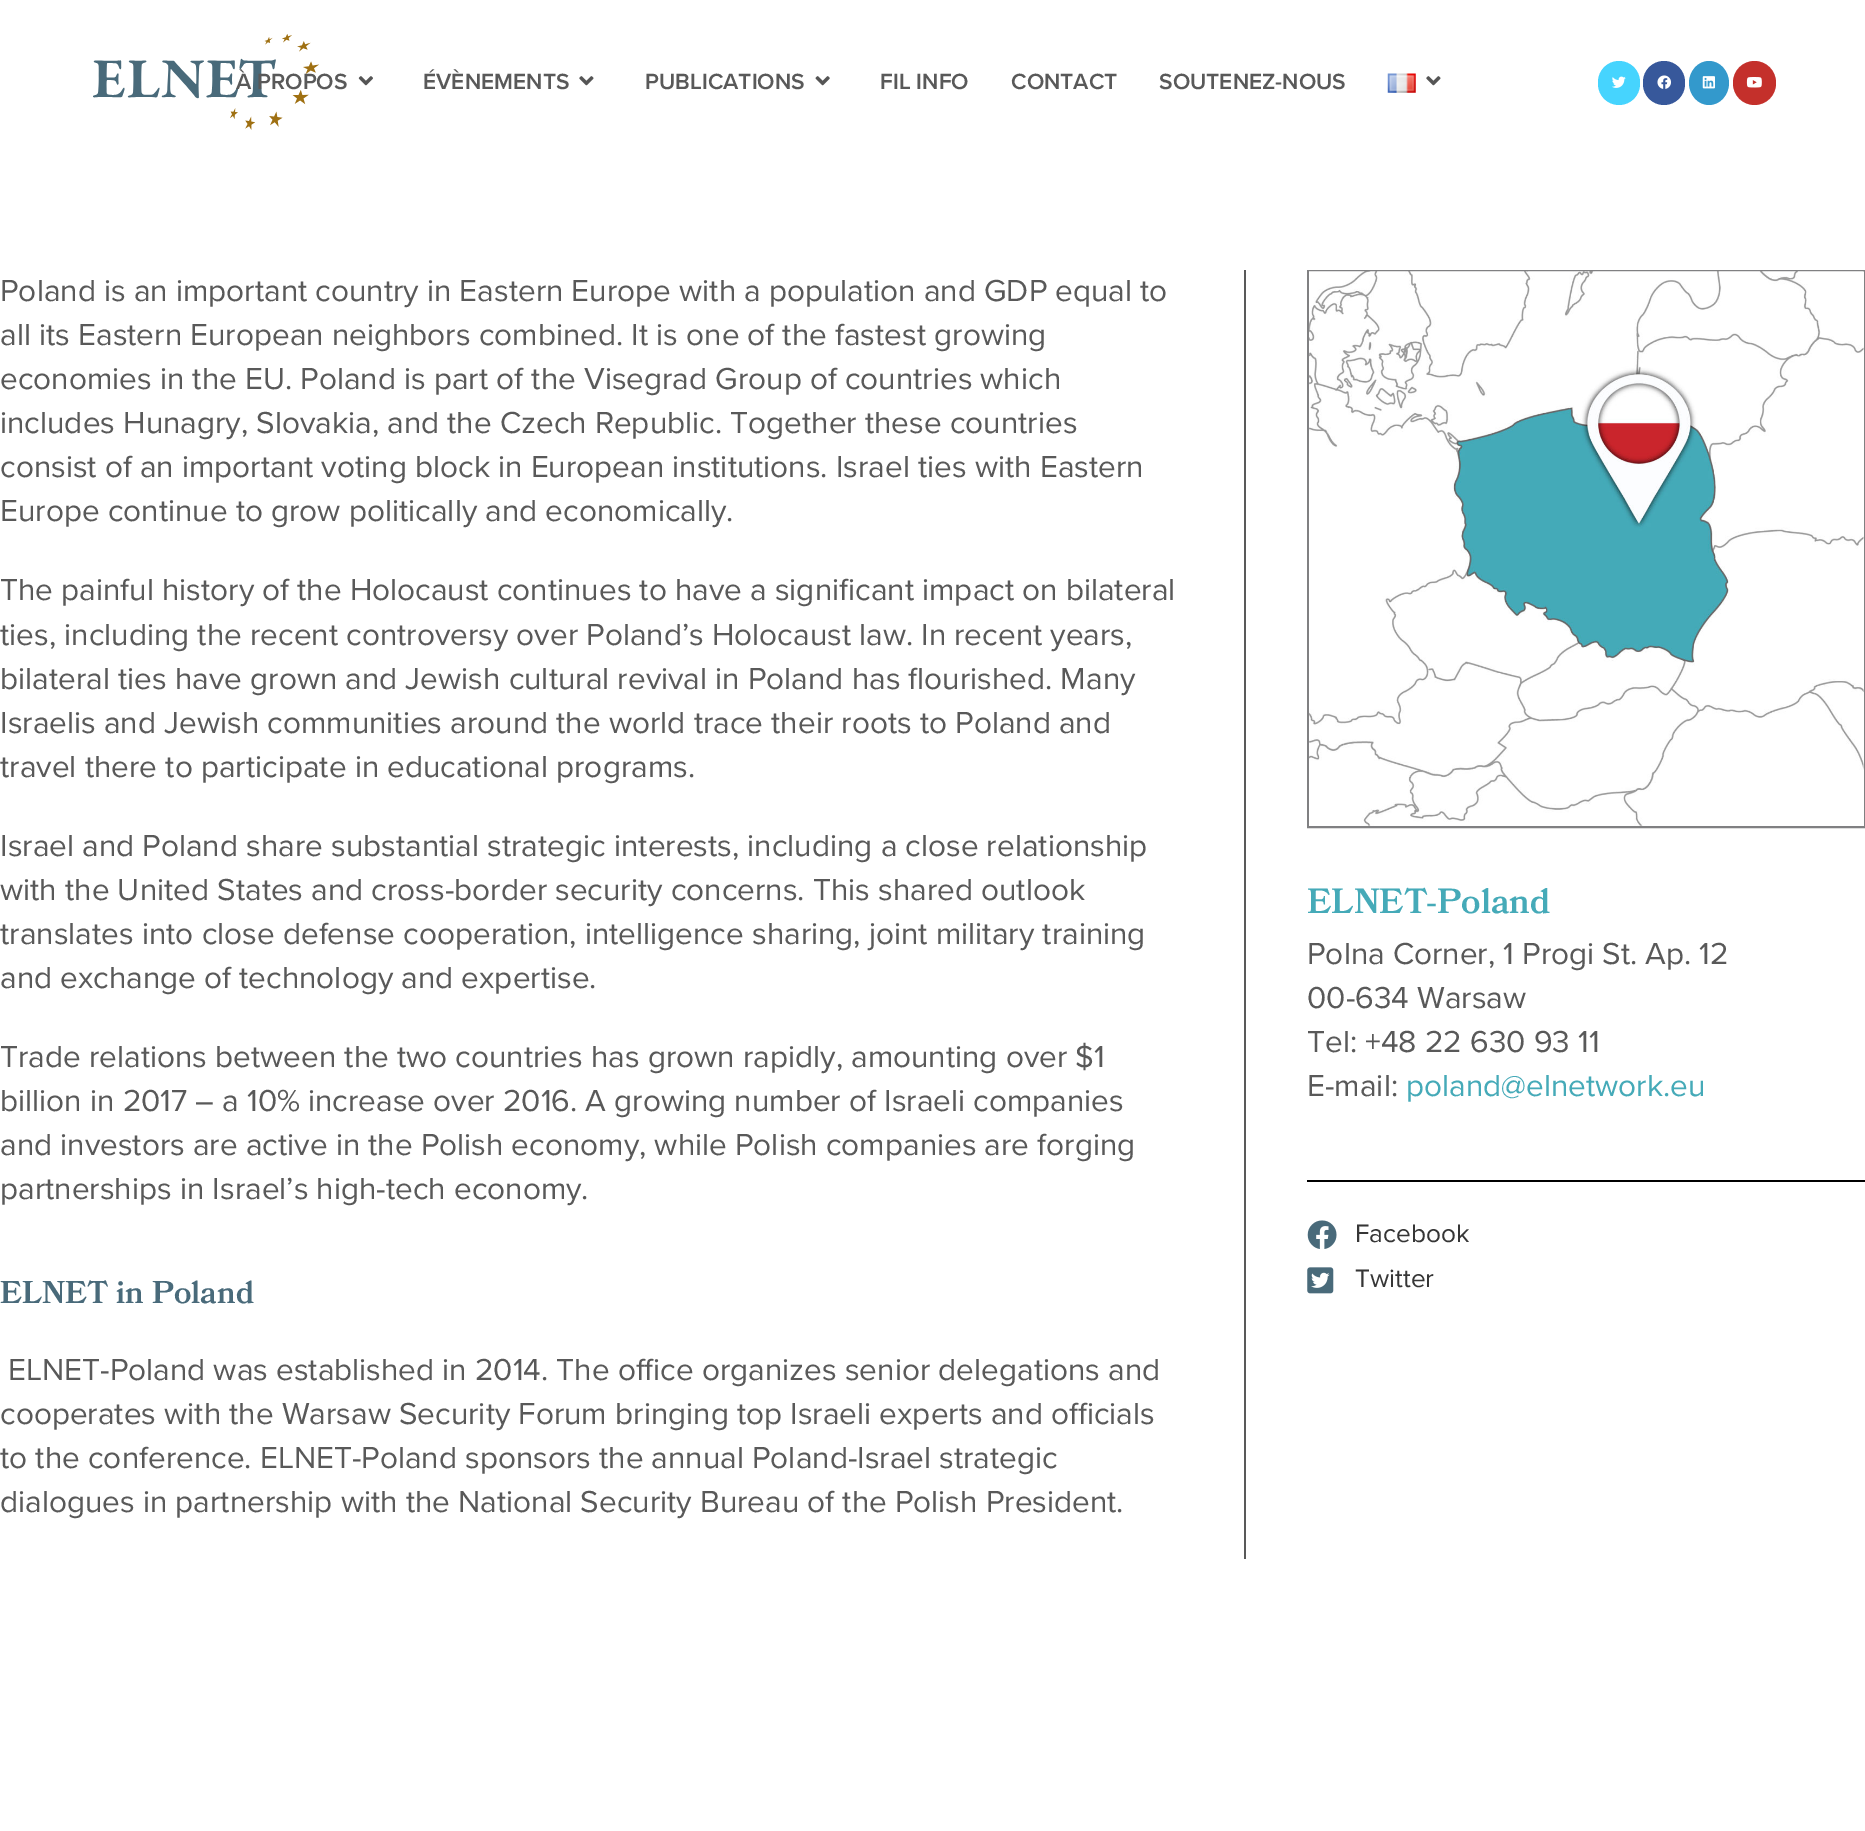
%!PS-Adobe-3.0
%%BoundingBox: 0 0 1865 1831
%%LanguageLevel: 3
%%Pages: 1
%%EndComments
%%BeginProlog
/rrect { 5 dict begin { /r /h /w /y /x } { exch def } forall
  x r add y moveto x w add y 2 copy h add r arct x w add y h add x 1 index r arct
  x y h add x y r arct x y 2 copy exch w add exch r arct closepath end } def
/drawimage { 5 dict begin { /h /w /y /x /name } { exch def } forall
  gsave x y translate w h scale
  w h 8 [w 0 0 h 0 0] name (r) file false 3 colorimage grestore end } def
%%EndProlog
%%BeginSetup
<< /PageSize [1865 1831] >> setpagedevice
%%EndSetup
%%Page: 1 1
0 1831 translate 1 -1 scale
4 setmiterlimit
1 setgray
0 0 1865 1831 rectfill
(images/1.raw) 93 34 226 96 drawimage
(images/2.raw) 358 76 15 10 drawimage
(images/3.raw) 579 76 15 10 drawimage
(images/4.raw) 815 76 15 10 drawimage
(images/5.raw) 1387 73 29 20 drawimage
(images/3.raw) 1426 76 15 10 drawimage
0.275 0.831 0.996 setrgbcolor
1598 61 42 44 21 rrect fill
(images/6.raw) 1612 76 14 12 drawimage
0.216 0.345 0.608 setrgbcolor
1643 61 42 44 21 rrect fill
(images/7.raw) 1657 75 14 14 drawimage
0.2 0.6 0.8 setrgbcolor
newpath 1709 61 moveto 1720 61 1729 71 1729 83 curveto 1729 95 1720 105 1709 105 curveto 1698 105 1689 95 1689 83 curveto 1689 71 1698 61 1709 61 curveto closepath fill
(images/8.raw) 1702 76 13 13 drawimage
0.769 0.188 0.169 setrgbcolor
1733 61 43 44 21.5 rrect fill
(images/9.raw) 1746 77 16 11 drawimage
0.349 setgray
1244 270 2 1289 rectfill
0.502 0.502 0.51 setrgbcolor
2 setlinewidth
1308 271 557 556 rectstroke
(images/10.raw) 1309 271 555 555 drawimage
0 setgray
1307 1180 558 2 rectfill
(images/11.raw) 1307 1220 30 29 drawimage
(images/12.raw) 1307 1267 27 27 drawimage
/ProximaNova-SemiBold [22.75 0 0 -22.75 0 0] selectfont
0.349 setgray
236 89 moveto (À PROPOS) show
423 89 moveto (ÉVÈNEMENTS) show
645 89 moveto (PUBLICATIONS) show
880 89 moveto (FIL INFO) show
1011 89 moveto (CONTACT) show
1159 89 moveto (SOUTENEZ-NOUS) show
/ProximaNova-Regular [31.5 0 0 -31.5 0 0] selectfont
0 301 moveto (Poland is an important country in Eastern Europe with a population and GDP equal to) show
0 345 moveto (all its Eastern European neighbors combined. It is one of the fastest growing) show
0 389 moveto (economies in the EU. Poland is part of the Visegrad Group of countries which) show
0 433 moveto (includes Hunagry, Slovakia, and the Czech Republic. Together these countries) show
0 477 moveto (consist of an important voting block in European institutions. Israel ties with Eastern) show
0 521 moveto (Europe continue to grow politically and economically.) show
0 600 moveto (The painful history of the Holocaust continues to have a significant impact on bilateral) show
0 645 moveto (ties, including the recent controversy over Poland’s Holocaust law. In recent years,) show
0 689 moveto (bilateral ties have grown and Jewish cultural revival in Poland has flourished. Many) show
0 733 moveto (Israelis and Jewish communities around the world trace their roots to Poland and) show
0 777 moveto (travel there to participate in educational programs.) show
0 856 moveto (Israel and Poland share substantial strategic interests, including a close relationship) show
0 900 moveto (with the United States and cross-border security concerns. This shared outlook) show
0 944 moveto (translates into close defense cooperation, intelligence sharing, joint military training) show
0 988 moveto (and exchange of technology and expertise.) show
0 1067 moveto (Trade relations between the two countries has grown rapidly, amounting over $1) show
0 1111 moveto (billion in 2017 – a 10% increase over 2016. A growing number of Israeli companies) show
0 1155 moveto (and investors are active in the Polish economy, while Polish companies are forging) show
0 1199 moveto (partnerships in Israel’s high-tech economy.) show
/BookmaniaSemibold-SemiBold [31.5 0 0 -31.5 0 0] selectfont
0.286 0.416 0.478 setrgbcolor
0 1303 moveto (ELNET in Poland) show
/ProximaNova-Regular [31.5 0 0 -31.5 0 0] selectfont
0.349 setgray
8 1380 moveto (ELNET-Poland was established in 2014. The office organizes senior delegations and) show
0 1424 moveto (cooperates with the Warsaw Security Forum bringing top Israeli experts and officials) show
0 1468 moveto (to the conference. ELNET-Poland sponsors the annual Poland-Israel strategic) show
0 1512 moveto (dialogues in partnership with the National Security Bureau of the Polish President.) show
/BookmaniaSemibold-SemiBold [35 0 0 -35 0 0] selectfont
0.271 0.667 0.722 setrgbcolor
1307 913 moveto (ELNET-Poland) show
/ProximaNova-Regular [31.5 0 0 -31.5 0 0] selectfont
0.349 setgray
1307 964 moveto (Polna Corner, 1 Progi St. Ap. 12) show
1307 1008 moveto (00-634 Warsaw) show
1307 1052 moveto (Tel: +48 22 630 93 11) show
1307 1096 moveto (E-mail:) show
0.271 0.667 0.722 setrgbcolor
1406 1096 moveto (poland@elnetwork.eu) show
/ProximaNova-Regular [26.25 0 0 -26.25 0 0] selectfont
0.212 setgray
1355 1242 moveto (Facebook) show
1355 1287 moveto (Twitter) show
showpage
%%EOF
